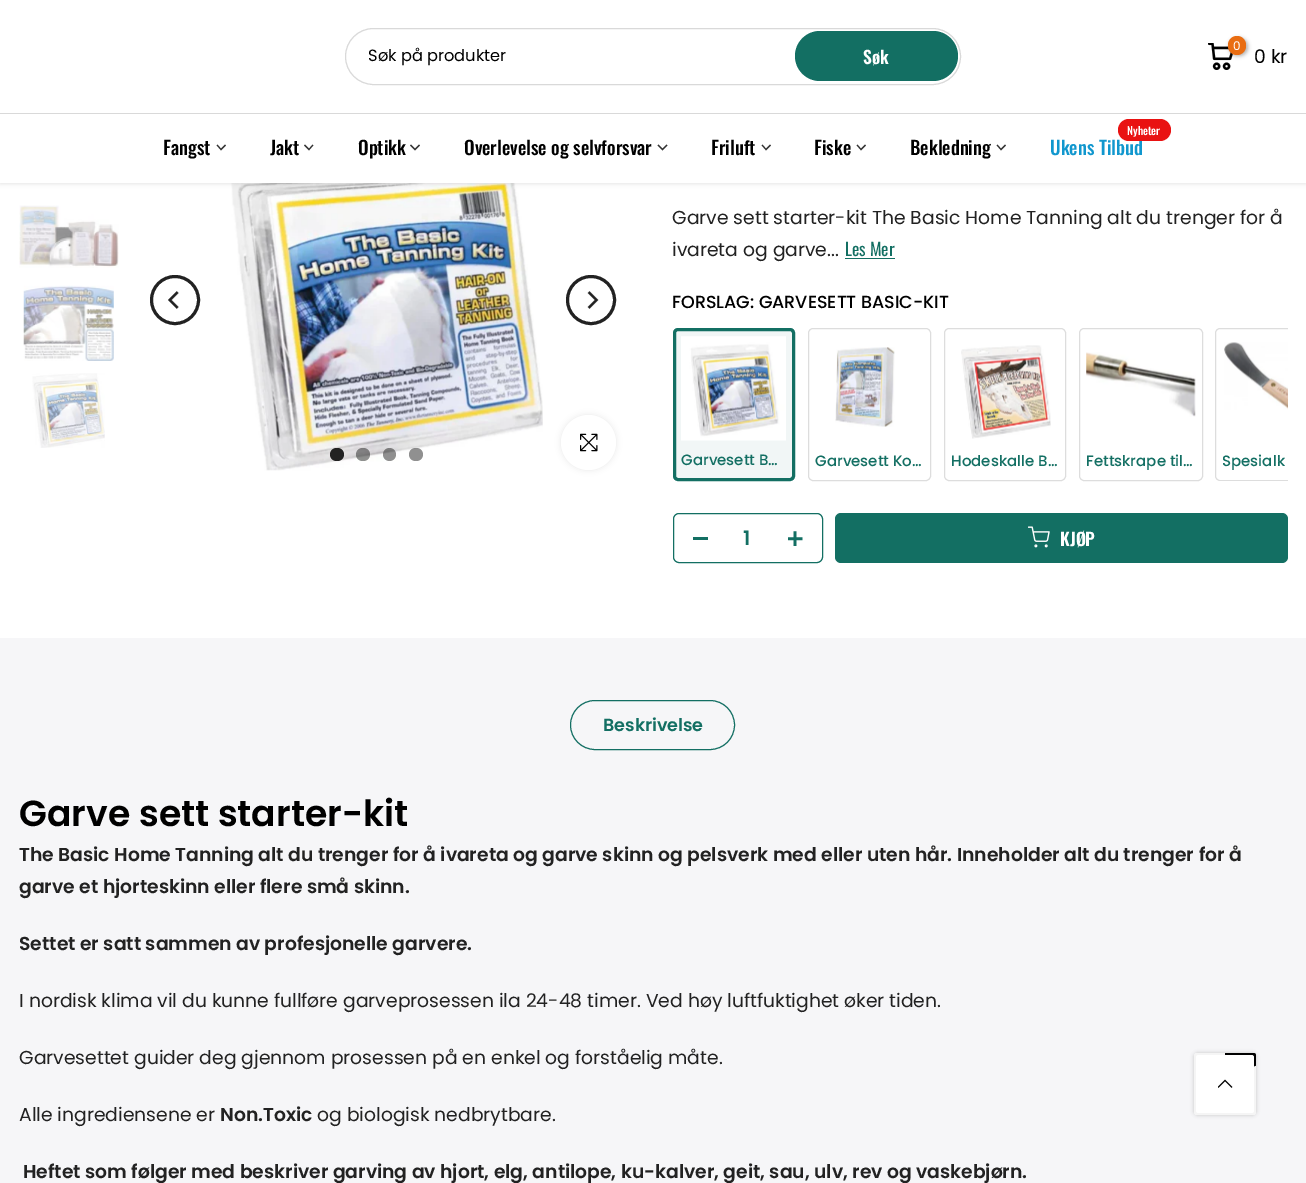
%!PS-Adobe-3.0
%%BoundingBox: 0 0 1306 1183
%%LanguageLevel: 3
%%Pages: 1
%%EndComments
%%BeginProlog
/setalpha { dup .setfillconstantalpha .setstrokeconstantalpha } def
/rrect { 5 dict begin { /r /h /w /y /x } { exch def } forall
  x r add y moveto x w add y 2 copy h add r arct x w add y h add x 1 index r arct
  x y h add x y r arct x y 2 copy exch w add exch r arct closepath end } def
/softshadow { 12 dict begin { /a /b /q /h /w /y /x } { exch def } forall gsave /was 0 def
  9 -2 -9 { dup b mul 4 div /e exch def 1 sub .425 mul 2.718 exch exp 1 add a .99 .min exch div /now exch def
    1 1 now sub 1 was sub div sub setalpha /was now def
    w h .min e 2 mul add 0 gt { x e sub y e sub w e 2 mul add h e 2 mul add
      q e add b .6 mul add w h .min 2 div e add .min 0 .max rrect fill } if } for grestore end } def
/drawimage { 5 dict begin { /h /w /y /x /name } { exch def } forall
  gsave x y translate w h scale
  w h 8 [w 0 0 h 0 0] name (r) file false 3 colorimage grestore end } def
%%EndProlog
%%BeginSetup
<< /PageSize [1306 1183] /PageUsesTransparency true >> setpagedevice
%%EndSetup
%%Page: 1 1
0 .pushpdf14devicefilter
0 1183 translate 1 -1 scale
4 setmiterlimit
1 setgray
0 0 1306 1183 rectfill
(images/6.raw) 231 183 312 288 drawimage
0 setgray
0 1 1306 183 0 2 0.1 softshadow
1 setgray
0 0 1306 183 rectfill
0.851 setgray
0 113 1306 1 rectfill
345.5 28.5 615 56 28 rrect stroke
0.075 0.435 0.388 setrgbcolor
795 31 163 50 25 rrect fill
(images/1.raw) 1208 43 25 27 drawimage
0 setgray
1229 38 19 18 9 2 0.3 softshadow
0.914 0.427 0.071 setrgbcolor
1228 36 18 19 9 rrect fill
0.2 setgray
1.1 setlinewidth
2 setlinecap
newpath 225 145.5 moveto 221 149.5 lineto 217.5 145.5 lineto stroke
newpath 312.5 145.5 moveto 309 149.5 lineto 305 145.5 lineto stroke
newpath 419 145.5 moveto 415 149.5 lineto 411 145.5 lineto stroke
newpath 666.5 145.5 moveto 662.5 149.5 lineto 658.5 145.5 lineto stroke
newpath 770 145.5 moveto 766 149.5 lineto 762.5 145.5 lineto stroke
newpath 865 145.5 moveto 861 149.5 lineto 857.5 145.5 lineto stroke
newpath 1005 145.5 moveto 1001 149.5 lineto 997.5 145.5 lineto stroke
(images/2.raw) 19 205 100 63 drawimage
(images/3.raw) 23 285 91 76 drawimage
(images/4.raw) 32 373 73 75 drawimage
0.133 setgray
3 setlinewidth
0 setlinecap
newpath 175 300 23.5 0 360 arc closepath stroke
(images/5.raw) 168 291 11 18 drawimage
newpath 591 300 23.5 0 360 arc closepath stroke
(images/7.raw) 587 291 12 18 drawimage
330 448 14 13 6.5 rrect fill
0.5 setalpha
356 448 14 13 6.5 rrect fill
newpath 389.5 454.5 6.5 0 360 arc closepath fill
409 448 14 13 6.5 rrect fill
1 setalpha
0 setgray
561 415 55 55 27.5 3 0.09 softshadow
1 setgray
newpath 588.5 442.5 27.5 0 360 arc closepath fill
(images/8.raw) 580 433 18 19 drawimage
0.075 0.435 0.388 setrgbcolor
845 258 50 1 rectfill
0.945 0.965 0.965 setrgbcolor
674.5 329.5 119 150 3.5 rrect gsave fill grestore
0.075 0.435 0.388 setrgbcolor
stroke
(images/9.raw) 681 336 105 105 drawimage
0.867 setgray
1 setlinewidth
808.5 328.5 122 152 4.5 rrect stroke
(images/10.raw) 835 347 60 80 drawimage
944.5 328.5 121 152 4.5 rrect stroke
(images/11.raw) 961 345 90 94 drawimage
1079.5 328.5 123 152 4.5 rrect stroke
(images/12.raw) 1086 352 110 65 drawimage
gsave
673 328 615 153 rectclip
1215.5 328.5 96 152 4.5 rrect stroke
grestore
(images/13.raw) 1224 342 64 68 drawimage
0.075 0.435 0.388 setrgbcolor
673.5 513.5 149 49 5.5 rrect stroke
693 537 15 3 rectfill
(images/14.raw) 788 531 15 15 drawimage
835 513 453 50 6 rrect fill
(images/15.raw) 1028 526 22 22 drawimage
0.965 0.965 0.973 setrgbcolor
0 638 1306 545 rectfill
0.075 0.435 0.388 setrgbcolor
570.5 700.5 164 49 24.5 rrect stroke
0 setgray
1194 1053 62 62 4 2 0.2 softshadow
1 setgray
1194 1053 62 62 4 rrect fill
0 setgray
newpath 1225 1084 moveto 1256 1065.5 lineto 1256 1055.5 lineto 1256 1054 1255 1053 1253.5 1053 curveto 1225 1053 lineto closepath fill
0.961 setgray
newpath 1225 1084 moveto 1225 1053 lineto 1196 1053 lineto 1195 1053 1194 1054 1194 1056 curveto 1194 1112 lineto 1194 1114 1195 1115 1196 1115 curveto 1254 1115 lineto 1255 1115 1256 1114 1256 1112 curveto 1256 1066 lineto closepath fill
1 setgray
1196 1055 58 58 2.5 rrect fill
(images/16.raw) 1218 1079 15 9 drawimage
/Poppins-Regular [16.25 0 0 -16.25 0 0] selectfont
0 setgray
368 61 moveto (Søk på produkter) show
/Oswald-SemiBold [17.5 0 0 -17.5 0 0] selectfont
1 setgray
863 64 moveto (Søk) show
/Poppins-Regular [12 0 0 -12 0 0] selectfont
1233 50 moveto (0) show
/Poppins-Regular [18.75 0 0 -18.75 0 0] selectfont
0 setgray
1254 63 moveto (0 kr) show
/Oswald-Medium [18.75 0 0 -18.75 0 0] selectfont
163 155 moveto (Fangst) show
270 155 moveto (Jakt) show
358 155 moveto (Optikk) show
464 155 moveto (Overlevelse og selvforsvar) show
711 155 moveto (Friluft) show
814 155 moveto (Fiske) show
910 155 moveto (Bekledning) show
0.067 0.592 0.808 setrgbcolor
1050 155 moveto (Ukens Tilbud) show
0.914 0.071 0.071 setrgbcolor
1118 119 53 22 11 rrect fill
/Oswald-Medium [11 0 0 -11 0 0] selectfont
1 setgray
1127 135 moveto (Nyheter) show
/Poppins-Regular [18.75 0 0 -18.75 0 0] selectfont
0.133 setgray
672 224 moveto (Garve sett starter-kit The Basic Home Tanning alt du trenger for å) show
672 256 moveto (ivareta og garve...) show
/Oswald-Regular [17.5 0 0 -17.5 0 0] selectfont
0.075 0.435 0.388 setrgbcolor
845 256 moveto (Les Mer) show
/Poppins-Medium [17.5 0 0 -17.5 0 0] selectfont
0 setgray
672 308 moveto (FORSLAG: GARVESETT BASIC-KIT) show
/Poppins-Medium [15 0 0 -15 0 0] selectfont
0.075 0.435 0.388 setrgbcolor
681 465 moveto (Garvesett B…) show
815 466 moveto (Garvesett Ko…) show
951 466 moveto (Hodeskalle B…) show
1086 466 moveto (Fettskrape til…) show
gsave
1223 449 65 25 rectclip
1222 466 moveto (Spesialk) show
grestore
/Poppins-SemiBold [20 0 0 -20 0 0] selectfont
743 545 moveto (1) show
/Oswald-SemiBold [17.5 0 0 -17.5 0 0] selectfont
1 setgray
1060 546 moveto (KJØP) show
/Poppins-SemiBold [17.5 0 0 -17.5 0 0] selectfont
0.075 0.435 0.388 setrgbcolor
603 731 moveto (Beskrivelse) show
/Poppins-SemiBold [36.25 0 0 -36.25 0 0] selectfont
0 setgray
19 826 moveto (Garve sett starter-kit) show
/Poppins-SemiBold [18.75 0 0 -18.75 0 0] selectfont
0.133 setgray
19 861 moveto (The Basic Home Tanning alt du trenger for å ivareta og garve skinn og pelsverk med eller uten hår. Inneholder alt du trenger for å) show
19 893 moveto (garve et hjorteskinn eller flere små skinn.) show
19 950 moveto (Settet er satt sammen av profesjonelle garvere.) show
/Poppins-Regular [18.75 0 0 -18.75 0 0] selectfont
19 1007 moveto (I nordisk klima vil du kunne fullføre garveprosessen ila 24-48 timer. Ved høy luftfuktighet øker tiden.) show
19 1064 moveto (Garvesettet guider deg gjennom prosessen på en enkel og forståelig måte.) show
19 1121 moveto (Alle ingrediensene er) show
/Poppins-SemiBold [18.75 0 0 -18.75 0 0] selectfont
220 1121 moveto (Non.Toxic) show
/Poppins-Regular [18.75 0 0 -18.75 0 0] selectfont
317 1121 moveto (og biologisk nedbrytbare.) show
/Poppins-SemiBold [18.75 0 0 -18.75 0 0] selectfont
23 1178 moveto (Heftet som følger med beskriver garving av hjort, elg, antilope, ku-kalver, geit, sau, ulv, rev og vaskebjørn.) show
.poppdf14devicefilter showpage
%%EOF
